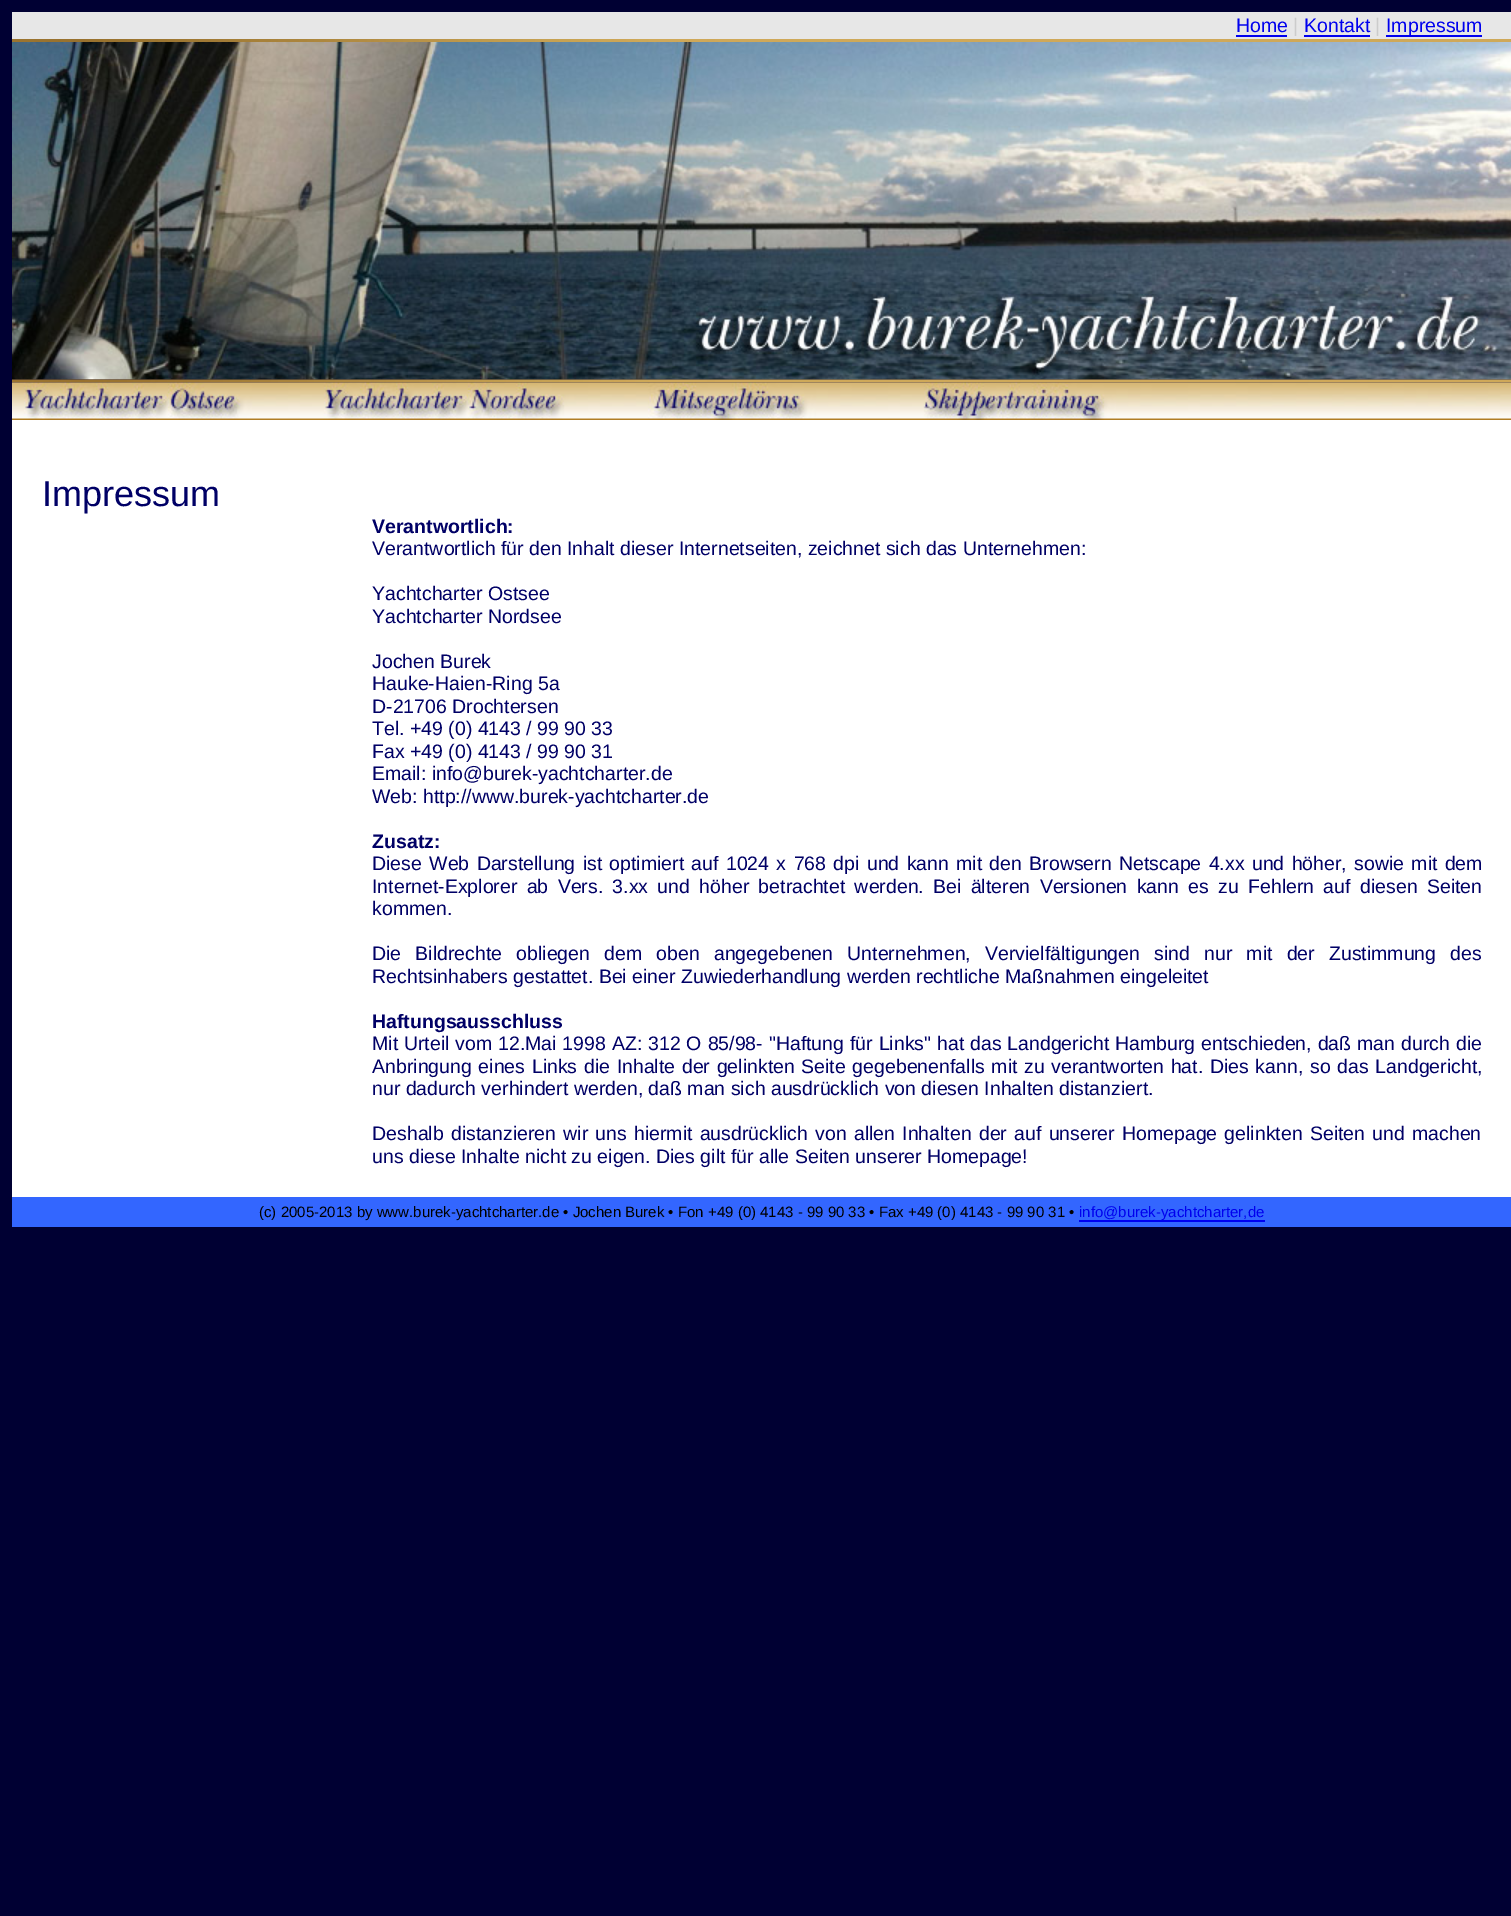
%!PS-Adobe-3.0
%%BoundingBox: 0 0 1511 1916
%%LanguageLevel: 3
%%Pages: 1
%%EndComments
%%BeginProlog
/drawimage { 5 dict begin { /h /w /y /x /name } { exch def } forall
  gsave x y translate w h scale
  w h 8 [w 0 0 h 0 0] name (r) file false 3 colorimage grestore end } def
%%EndProlog
%%BeginSetup
<< /PageSize [1511 1916] >> setpagedevice
%%EndSetup
%%Page: 1 1
0 1916 translate 1 -1 scale
4 setmiterlimit
0 0 0.2 setrgbcolor
0 0 1511 1916 rectfill
0.906 setgray
12 12 1499 27 rectfill
0 0 0.933 setrgbcolor
1236 35 51 2 rectfill
1304 35 66 2 rectfill
1386 35 96 2 rectfill
(images/1.raw) 12 39 1499 3 drawimage
(images/2.raw) 12 42 1499 338 drawimage
(images/3.raw) 12 379 1499 4 drawimage
(images/4.raw) 12 382 300 38 drawimage
(images/5.raw) 312 382 300 38 drawimage
(images/6.raw) 612 382 300 38 drawimage
(images/7.raw) 912 382 300 38 drawimage
(images/8.raw) 1212 382 299 38 drawimage
1 setgray
12 420 1499 53 rectfill
12 473 1499 724 rectfill
0.2 0.4 1 setrgbcolor
12 1197 1499 30 rectfill
0 0 0.933 setrgbcolor
1079 1220 186 2 rectfill
/LiberationSans-Regular [19.5 0 0 -19.5 0 0] selectfont
1236 32 moveto (Home) show
0.8 setgray
1293 32 moveto (|) show
0 0 0.933 setrgbcolor
1304 32 moveto (Kontakt) show
0.8 setgray
1375 32 moveto (|) show
0 0 0.933 setrgbcolor
1386 32 moveto (Impressum) show
/LiberationSans-Regular [36 0 0 -36 0 0] selectfont
0 0 0.4 setrgbcolor
42 506 moveto (Impressum) show
/LiberationSans-Bold [19.5 0 0 -19.5 0 0] selectfont
372 533 moveto (Verantwortlich:) show
/LiberationSans-Regular [19.5 0 0 -19.5 0 0] selectfont
372 555 moveto (Verantwortlich für den Inhalt dieser Internetseiten, zeichnet sich das Unternehmen:) show
372 600 moveto (Yachtcharter Ostsee) show
372 623 moveto (Yachtcharter Nordsee) show
372 668 moveto (Jochen Burek) show
372 690 moveto (Hauke-Haien-Ring 5a) show
372 713 moveto (D-21706 Drochtersen) show
372 735 moveto (Tel. +49 \(0\) 4143 / 99 90 33) show
372 758 moveto (Fax +49 \(0\) 4143 / 99 90 31) show
372 780 moveto (Email: info@burek-yachtcharter.de) show
372 803 moveto (Web: http://www.burek-yachtcharter.de) show
/LiberationSans-Bold [19.5 0 0 -19.5 0 0] selectfont
372 848 moveto (Zusatz:) show
/LiberationSans-Regular [19.5 0 0 -19.5 0 0] selectfont
372 870 moveto 1.9 0 32 (Diese Web Darstellung ist optimiert auf 1024 x 768 dpi und kann mit den Browsern Netscape 4.xx und höher, sowie mit dem) widthshow
372 893 moveto 3.9 0 32 (Internet-Explorer ab Vers. 3.xx und höher betrachtet werden. Bei älteren Versionen kann es zu Fehlern auf diesen Seiten) widthshow
372 915 moveto (kommen.) show
372 960 moveto 8.75 0 32 (Die Bildrechte obliegen dem oben angegebenen Unternehmen, Vervielfältigungen sind nur mit der Zustimmung des) widthshow
372 983 moveto (Rechtsinhabers gestattet. Bei einer Zuwiederhandlung werden rechtliche Maßnahmen eingeleitet) show
/LiberationSans-Bold [19.5 0 0 -19.5 0 0] selectfont
372 1028 moveto (Haftungsausschluss) show
/LiberationSans-Regular [19.5 0 0 -19.5 0 0] selectfont
372 1050 moveto 0.5 0 32 (Mit Urteil vom 12.Mai 1998 AZ: 312 O 85/98- "Haftung für Links" hat das Landgericht Hamburg entschieden, daß man durch die) widthshow
372 1073 moveto 1.25 0 32 (Anbringung eines Links die Inhalte der gelinkten Seite gegebenenfalls mit zu verantworten hat. Dies kann, so das Landgericht,) widthshow
372 1095 moveto (nur dadurch verhindert werden, daß man sich ausdrücklich von diesen Inhalten distanziert.) show
372 1140 moveto 1.8 0 32 (Deshalb distanzieren wir uns hiermit ausdrücklich von allen Inhalten der auf unserer Homepage gelinkten Seiten und machen) widthshow
372 1163 moveto (uns diese Inhalte nicht zu eigen. Dies gilt für alle Seiten unserer Homepage!) show
/LiberationSans-Regular [15 0 0 -15 0 0] selectfont
0 setgray
259 1217 moveto (\(c\) 2005-2013 by www.burek-yachtcharter.de • Jochen Burek • Fon +49 \(0\) 4143 - 99 90 33 • Fax +49 \(0\) 4143 - 99 90 31 •) show
0 0 0.933 setrgbcolor
1079 1217 moveto (info@burek-yachtcharter,de) show
showpage
%%EOF
